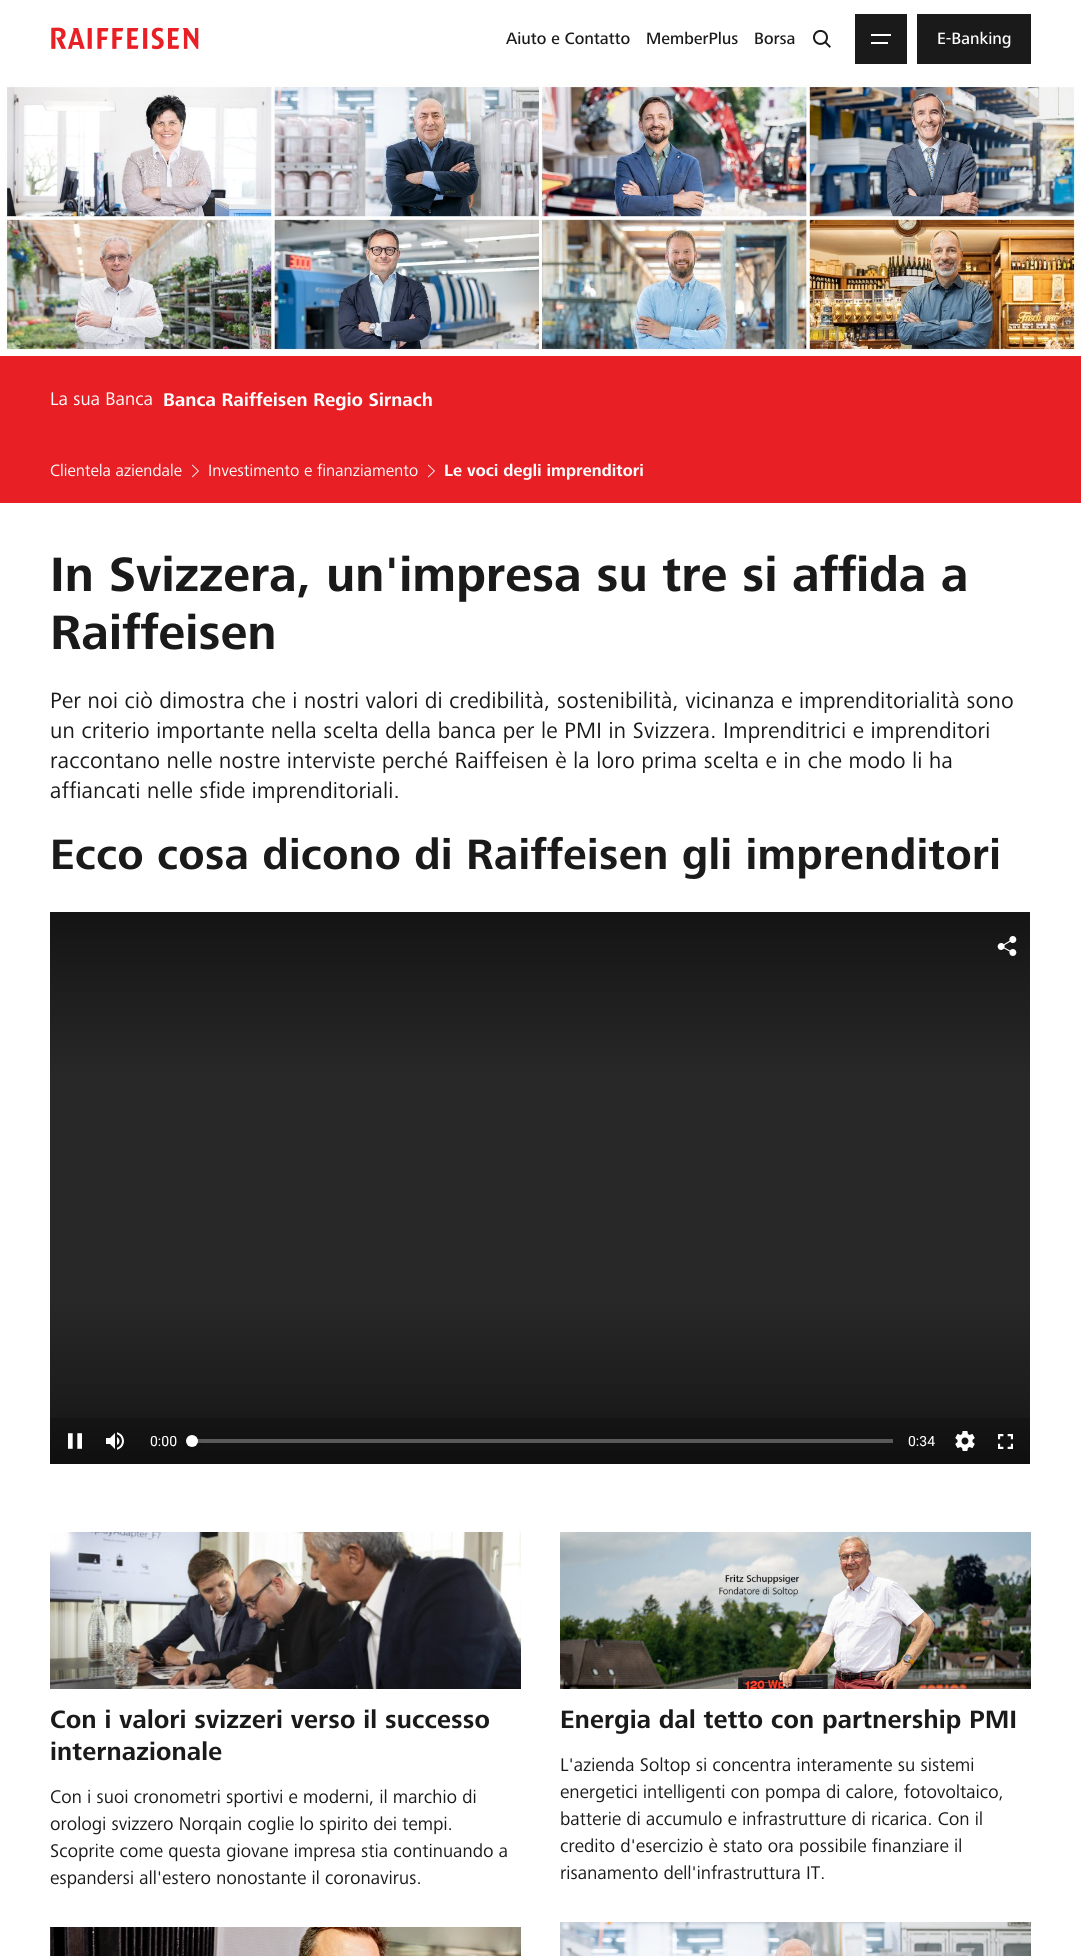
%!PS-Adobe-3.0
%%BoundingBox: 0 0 1081 1956
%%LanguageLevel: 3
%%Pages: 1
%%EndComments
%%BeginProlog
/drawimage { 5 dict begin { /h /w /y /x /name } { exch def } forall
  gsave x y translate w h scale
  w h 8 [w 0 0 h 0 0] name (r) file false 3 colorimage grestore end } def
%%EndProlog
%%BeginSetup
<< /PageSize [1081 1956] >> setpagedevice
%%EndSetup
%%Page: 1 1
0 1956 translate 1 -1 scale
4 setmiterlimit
1 setgray
0 0 1081 1956 rectfill
(images/1.raw) 51 27 148 23 drawimage
(images/2.raw) 506 32 124 13 drawimage
(images/3.raw) 647 31 91 14 drawimage
(images/4.raw) 755 32 40 13 drawimage
(images/5.raw) 813 29 18 19 drawimage
0.102 setgray
855 14 52 50 rectfill
1 setgray
871 34 20 2 rectfill
871 42 17 2 rectfill
0.102 setgray
917 14 114 50 rectfill
(images/6.raw) 938 31 73 17 drawimage
(images/7.raw) 0 80 1081 271 drawimage
0.91 0.125 0.145 setrgbcolor
0 356 1081 147 rectfill
(images/8.raw) 51 392 101 14 drawimage
(images/9.raw) 164 392 268 19 drawimage
(images/10.raw) 50 463 132 14 drawimage
(images/11.raw) 191 464 8 14 drawimage
(images/12.raw) 209 463 209 14 drawimage
(images/11.raw) 427 464 8 14 drawimage
(images/13.raw) 445 463 198 17 drawimage
(images/14.raw) 53 554 913 48 drawimage
(images/15.raw) 53 612 221 38 drawimage
(images/16.raw) 51 691 962 22 drawimage
(images/17.raw) 51 721 938 22 drawimage
(images/18.raw) 51 751 901 22 drawimage
(images/19.raw) 50 781 348 22 drawimage
(images/20.raw) 53 836 946 43 drawimage
(images/21.raw) 50 912 980 552 drawimage
(images/22.raw) 50 1532 471 157 drawimage
(images/23.raw) 51 1709 438 20 drawimage
(images/24.raw) 51 1741 171 20 drawimage
(images/25.raw) 51 1789 425 19 drawimage
(images/26.raw) 50 1816 401 19 drawimage
(images/27.raw) 50 1843 457 19 drawimage
(images/28.raw) 50 1870 370 19 drawimage
(images/29.raw) 50 1927 471 29 drawimage
(images/30.raw) 560 1532 471 157 drawimage
(images/31.raw) 561 1709 455 25 drawimage
(images/32.raw) 561 1757 413 19 drawimage
(images/33.raw) 560 1784 442 19 drawimage
(images/34.raw) 561 1811 421 15 drawimage
(images/35.raw) 560 1838 401 19 drawimage
(images/36.raw) 561 1865 263 15 drawimage
(images/37.raw) 560 1922 471 34 drawimage
showpage
%%EOF
